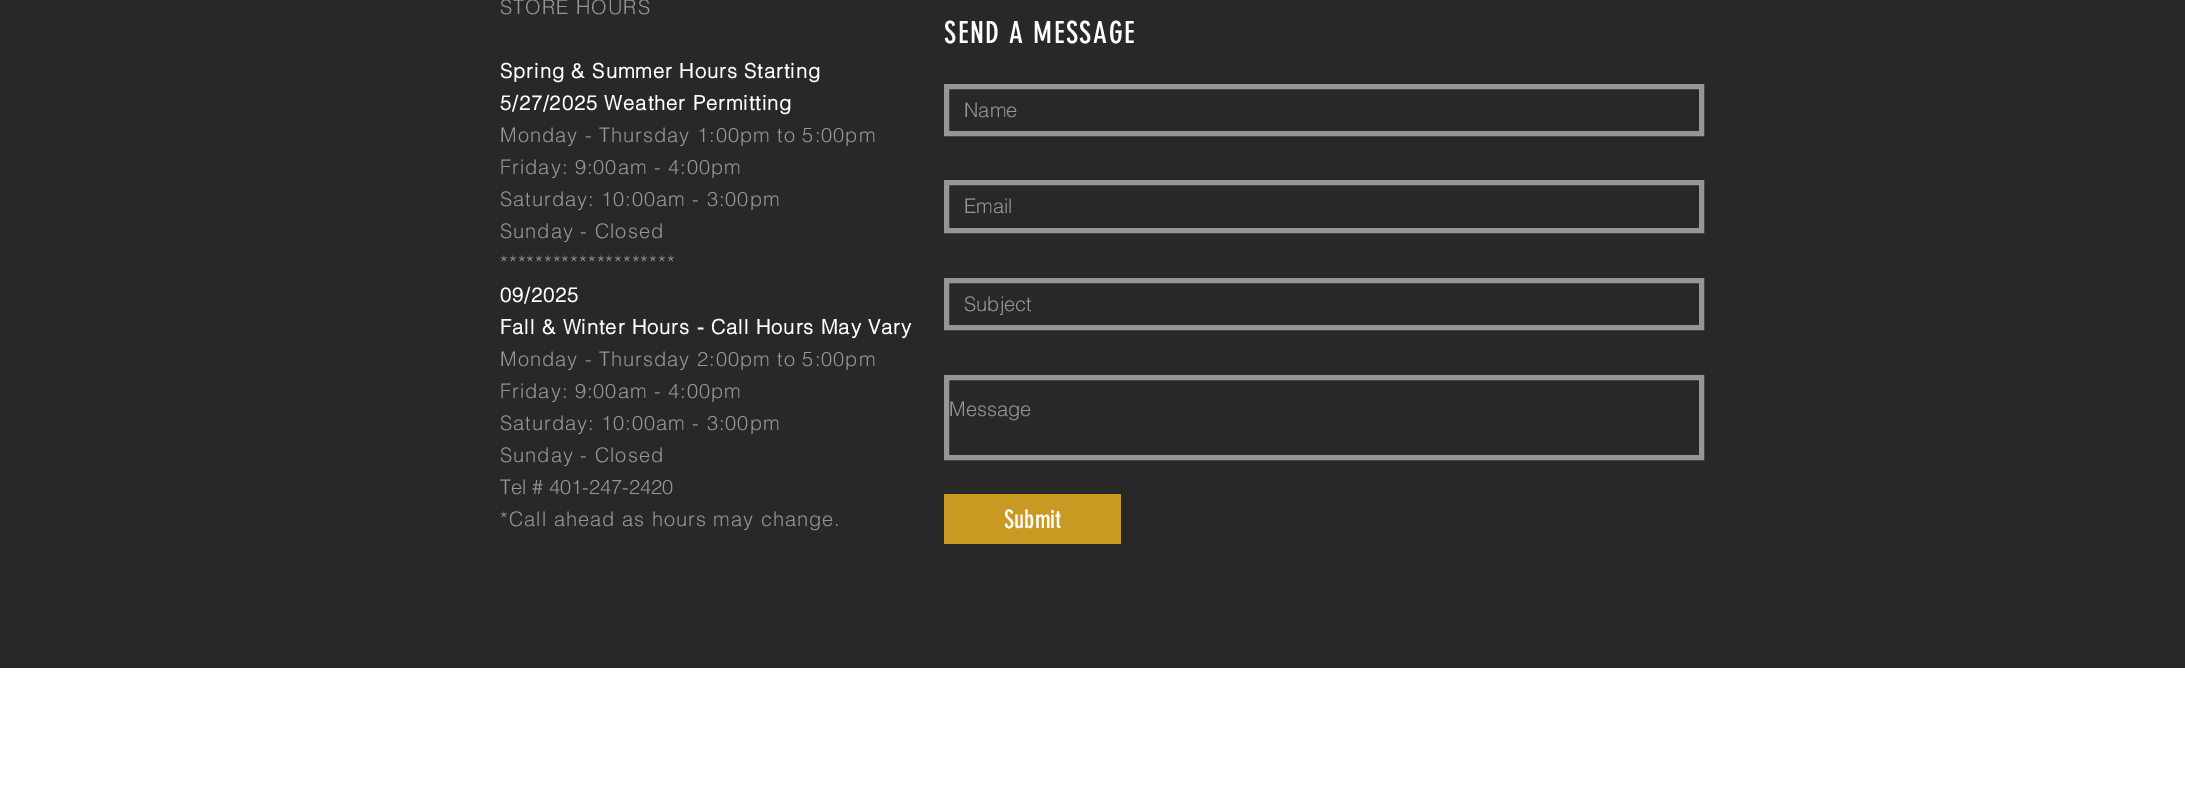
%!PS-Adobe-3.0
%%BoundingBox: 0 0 2185 786
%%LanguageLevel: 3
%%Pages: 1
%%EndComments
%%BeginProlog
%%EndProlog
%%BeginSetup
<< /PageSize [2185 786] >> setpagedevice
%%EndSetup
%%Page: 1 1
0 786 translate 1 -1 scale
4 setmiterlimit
1 setgray
0 0 2185 786 rectfill
0.157 setgray
0 0 2185 668 rectfill
0.588 setgray
5 setlinewidth
946.5 86.5 755 47 rectstroke
946.5 182.5 755 48 rectstroke
946.5 280.5 755 47 rectstroke
946.5 377.5 755 80 rectstroke
0.788 0.604 0.133 setrgbcolor
944 494 177 50 rectfill
/helvetica-Light [20 0 0 -20 0 0] selectfont
0.588 setgray
500 14 moveto 1 0 (STORE HOURS) ashow
/helvetica-Bold [20 0 0 -20 0 0] selectfont
1 setgray
500 78 moveto 1 0 (Spring & Summer Hours Starting) ashow
500 110 moveto 1 0 (5/27/2025 Weather Permitting) ashow
/helvetica-Light [20 0 0 -20 0 0] selectfont
0.588 setgray
500 142 moveto 1 0 (Monday - Thursday 1:00pm to 5:00pm) ashow
500 174 moveto 1 0 (Friday: 9:00am - 4:00pm) ashow
500 206 moveto 1 0 (Saturday: 10:00am - 3:00pm) ashow
500 238 moveto 1 0 (Sunday - Closed) ashow
500 270 moveto 1 0 (********************) ashow
/helvetica-Bold [20 0 0 -20 0 0] selectfont
1 setgray
500 302 moveto 1 0 (09/2025) ashow
500 334 moveto 1 0 (Fall & Winter Hours - Call Hours May Vary) ashow
/helvetica-Light [20 0 0 -20 0 0] selectfont
0.588 setgray
500 366 moveto 1 0 (Monday - Thursday 2:00pm to 5:00pm) ashow
500 398 moveto 1 0 (Friday: 9:00am - 4:00pm) ashow
500 430 moveto 1 0 (Saturday: 10:00am - 3:00pm) ashow
500 462 moveto 1 0 (Sunday - Closed) ashow
500 494 moveto (Tel # 401-247-2420) show
500 526 moveto 1 0 (*Call ahead as hours may change.) ashow
/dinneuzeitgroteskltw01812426-Regular [30 0 0 -30 0 0] selectfont
1 setgray
944 43 moveto 1.5 0 (SEND A MESSAGE) ashow
/helvetica-Light [20 0 0 -20 0 0] selectfont
0.588 setgray
964 117 moveto (Name) show
964 213 moveto (Email) show
964 311 moveto (Subject) show
949 416 moveto (Message) show
/dinneuzeitgroteskltw01812426-Regular [25 0 0 -25 0 0] selectfont
1 setgray
1004 528 moveto (Submit) show
showpage
%%EOF
